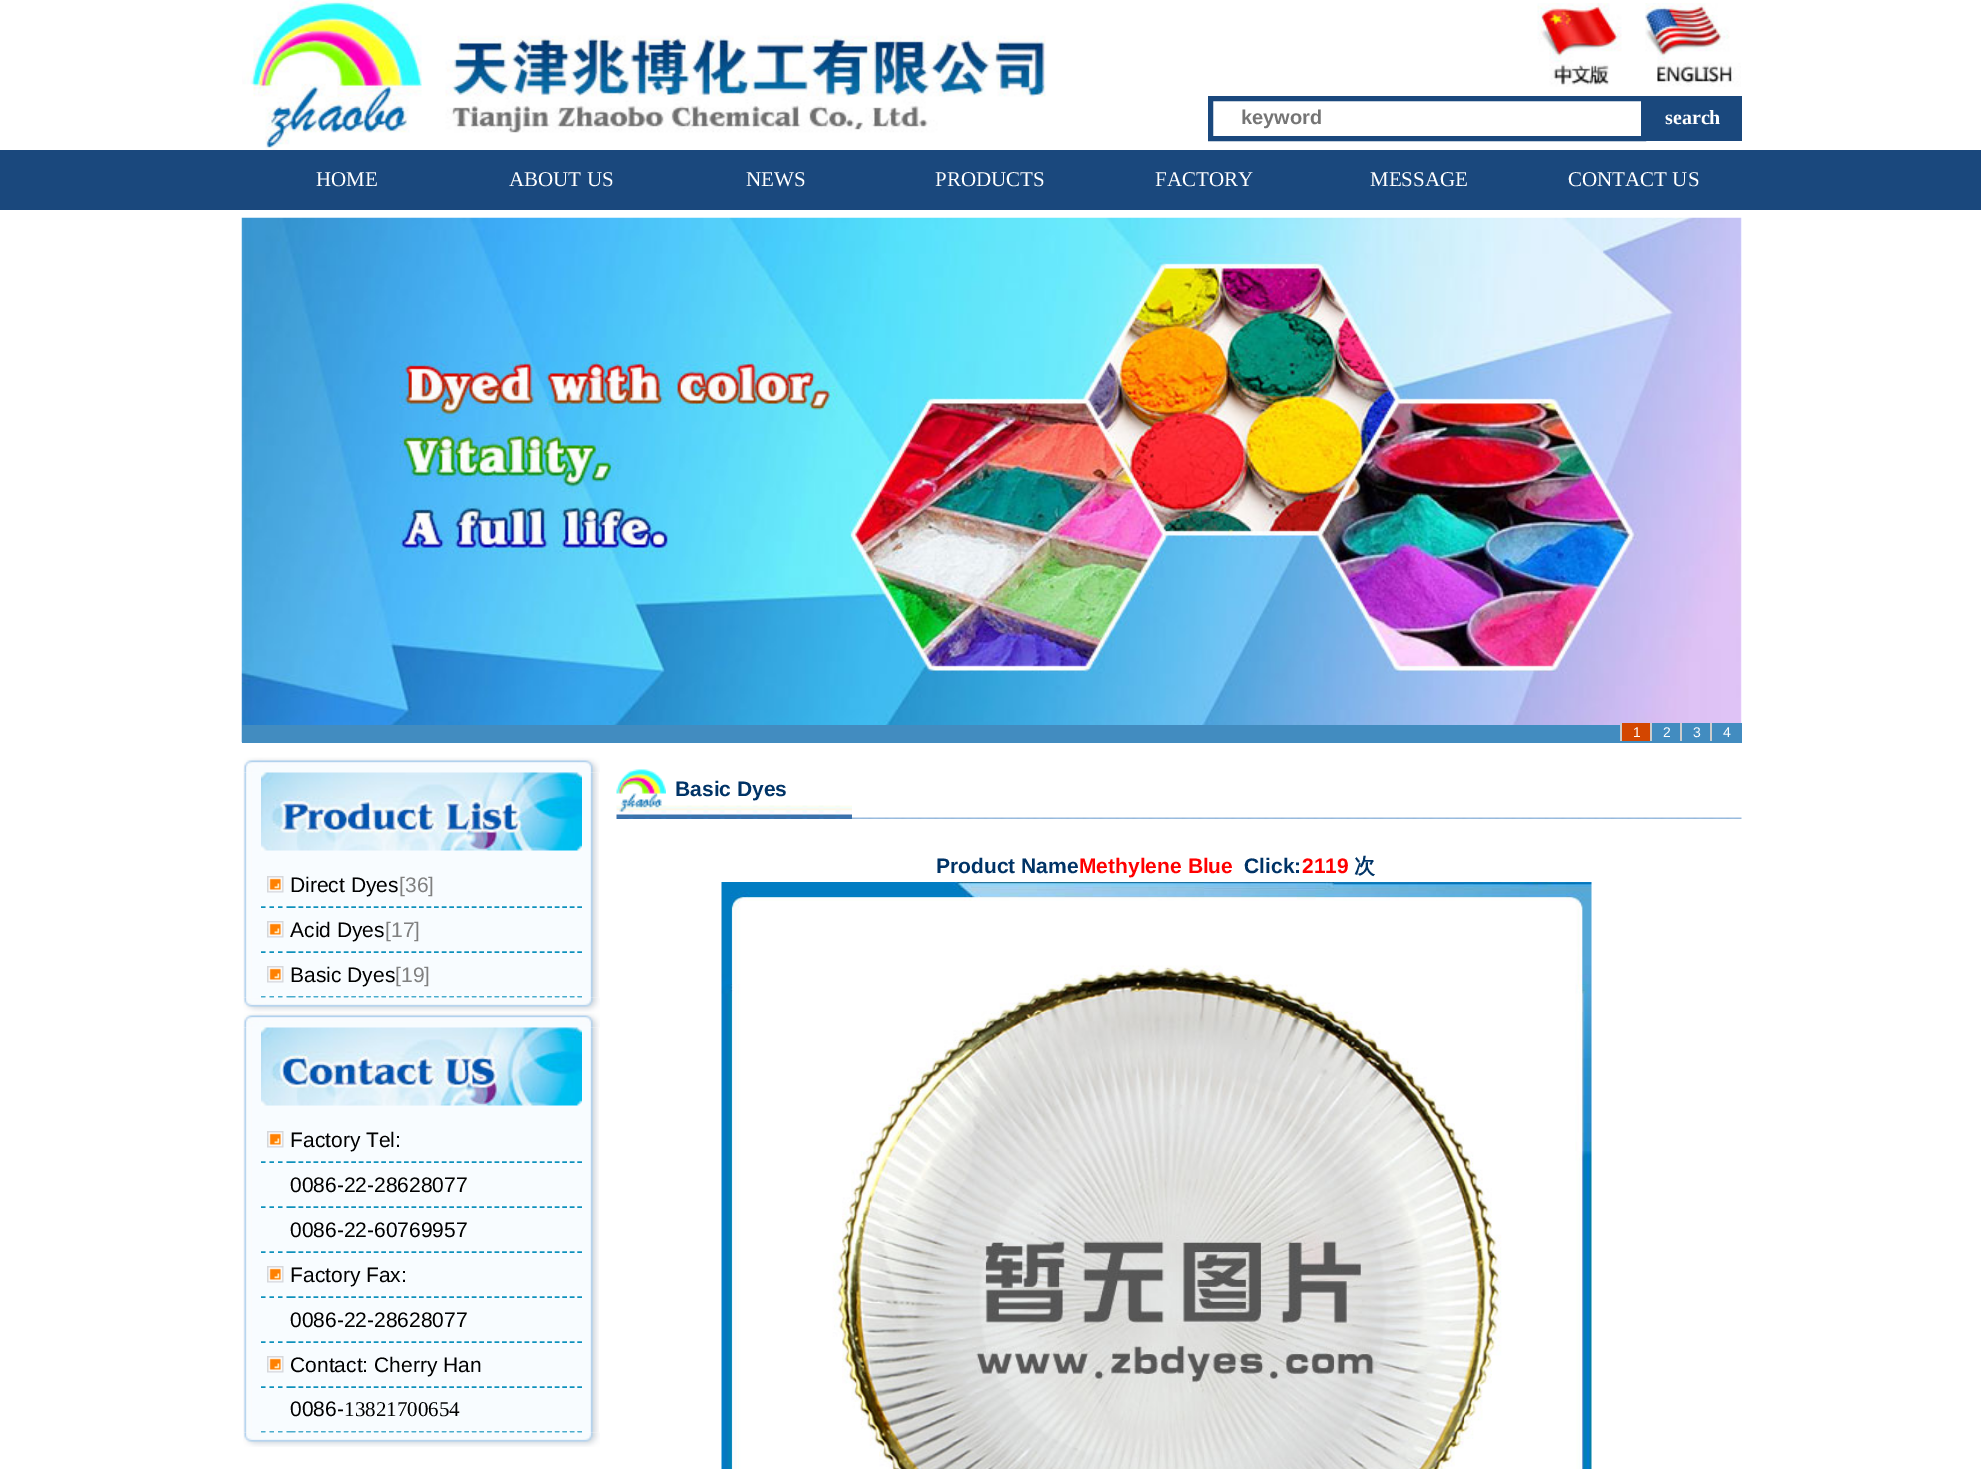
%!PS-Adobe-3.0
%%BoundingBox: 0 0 1981 1469
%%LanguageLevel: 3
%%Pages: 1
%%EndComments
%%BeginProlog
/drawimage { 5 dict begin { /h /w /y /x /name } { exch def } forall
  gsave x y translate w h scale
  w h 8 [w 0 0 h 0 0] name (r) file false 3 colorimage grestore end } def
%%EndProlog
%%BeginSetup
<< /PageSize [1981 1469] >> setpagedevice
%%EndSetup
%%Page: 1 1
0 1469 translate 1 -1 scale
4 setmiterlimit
1 setgray
0 0 1981 1469 rectfill
(images/1.raw) 242 0 804 150 drawimage
(images/2.raw) 1537 3 85 84 drawimage
(images/3.raw) 1645 3 96 84 drawimage
0.102 0.282 0.49 setrgbcolor
5 setlinewidth
1210.5 98.5 433 40 rectstroke
1646 96 96 45 rectfill
0 150 1981 60 rectfill
(images/4.raw) 241 217 1501 526 drawimage
0.259 0.549 0.753 setrgbcolor
242 725 1500 18 rectfill
0.827 0.275 0 setrgbcolor
1622 723 28 18 rectfill
0.8 setgray
1620 723 2 18 rectfill
0.259 0.549 0.753 setrgbcolor
1652 723 28 2 rectfill
0.8 setgray
1650 723 2 18 rectfill
0.259 0.549 0.753 setrgbcolor
1682 723 28 2 rectfill
0.8 setgray
1680 723 2 18 rectfill
0.259 0.549 0.753 setrgbcolor
1712 723 30 2 rectfill
0.8 setgray
1710 723 2 18 rectfill
(images/5.raw) 616 805 59 14 drawimage
(images/6.raw) 616 769 50 43 drawimage
(images/7.raw) 675 805 177 14 drawimage
(images/8.raw) 852 817 890 2 drawimage
(images/9.raw) 721 882 871 587 drawimage
(images/11.raw) 243 772 356 226 drawimage
(images/10.raw) 243 757 357 16 drawimage
(images/12.raw) 261 772 321 79 drawimage
0.051 0.569 0.737 setrgbcolor
1.5 setlinewidth
[4.5 4] 0 setdash
newpath 261 907 moveto 291 907 lineto stroke
(images/13.raw) 267 876 17 17 drawimage
[4.5 3.04] 0 setdash
newpath 291 907 moveto 582 907 lineto stroke
[4.5 4] 0 setdash
newpath 261 952 moveto 291 952 lineto stroke
(images/13.raw) 267 921 17 17 drawimage
[4.5 3.04] 0 setdash
newpath 291 952 moveto 582 952 lineto stroke
[4.5 4] 0 setdash
newpath 261 997 moveto 291 997 lineto stroke
(images/13.raw) 267 966 17 17 drawimage
[4.5 3.04] 0 setdash
newpath 291 997 moveto 582 997 lineto stroke
(images/14.raw) 243 997 357 15 drawimage
(images/15.raw) 243 1027 356 406 drawimage
(images/10.raw) 243 1012 357 16 drawimage
(images/16.raw) 261 1027 321 79 drawimage
[4.5 4] 0 setdash
newpath 261 1162 moveto 291 1162 lineto stroke
(images/13.raw) 267 1131 17 17 drawimage
[4.5 3.04] 0 setdash
newpath 291 1162 moveto 582 1162 lineto stroke
newpath 291 1207 moveto 582 1207 lineto stroke
[4.5 4] 0 setdash
newpath 261 1207 moveto 291 1207 lineto stroke
[4.5 3.04] 0 setdash
newpath 291 1252 moveto 582 1252 lineto stroke
[4.5 4] 0 setdash
newpath 261 1252 moveto 291 1252 lineto stroke
newpath 261 1297 moveto 291 1297 lineto stroke
(images/13.raw) 267 1266 17 17 drawimage
[4.5 3.04] 0 setdash
newpath 291 1297 moveto 582 1297 lineto stroke
newpath 291 1342 moveto 582 1342 lineto stroke
[4.5 4] 0 setdash
newpath 261 1342 moveto 291 1342 lineto stroke
newpath 261 1387 moveto 291 1387 lineto stroke
(images/13.raw) 267 1356 17 17 drawimage
[4.5 3.04] 0 setdash
newpath 291 1387 moveto 582 1387 lineto stroke
newpath 291 1432 moveto 582 1432 lineto stroke
[4.5 4] 0 setdash
newpath 261 1432 moveto 291 1432 lineto stroke
(images/14.raw) 243 1432 357 15 drawimage
/LiberationSans-Bold [20 0 0 -20 0 0] selectfont
0.459 setgray
1241 124 moveto (keyword) show
/LiberationSerif-Bold [20 0 0 -20 0 0] selectfont
1 setgray
1665 124 moveto (search) show
/LiberationSerif-Regular [21 0 0 -21 0 0] selectfont
316 186 moveto (HOME) show
509 186 moveto (ABOUT US) show
746 186 moveto (NEWS) show
935 186 moveto (PRODUCTS) show
1155 186 moveto (FACTORY) show
1370 186 moveto (MESSAGE) show
1568 186 moveto (CONTACT US) show
/LiberationSans-Regular [14 0 0 -14 0 0] selectfont
1633 737 moveto (1) show
1663 737 moveto (2) show
1693 737 moveto (3) show
1723 737 moveto (4) show
/LiberationSans-Bold [21 0 0 -21 0 0] selectfont
0 0.2 0.4 setrgbcolor
675 796 moveto (Basic Dyes) show
936 873 moveto (Product Name) show
1 0 0 setrgbcolor
1079 873 moveto (Methylene Blue) show
0 0.2 0.4 setrgbcolor
1244 873 moveto (Click:) show
1 0 0 setrgbcolor
1302 873 moveto (2119) show
/WenQuanYiZenHei-Bold [21 0 0 -21 0 0] selectfont
0 0.2 0.4 setrgbcolor
1354 873 moveto (次) show
/LiberationSans-Regular [21 0 0 -21 0 0] selectfont
0 setgray
290 892 moveto (Direct Dyes) show
0.502 setgray
399 892 moveto ([36]) show
0 setgray
290 937 moveto (Acid Dyes) show
0.502 setgray
385 937 moveto ([17]) show
0 setgray
290 982 moveto (Basic Dyes) show
0.502 setgray
395 982 moveto ([19]) show
0 setgray
290 1147 moveto (Factory Tel:) show
290 1192 moveto (0086-22-28628077) show
290 1237 moveto (0086-22-60769957) show
290 1282 moveto (Factory Fax:) show
290 1327 moveto (0086-22-28628077) show
290 1372 moveto (Contact: Cherry Han) show
290 1416 moveto (0086-) show
/LiberationSerif-Regular [21 0 0 -21 0 0] selectfont
344 1416 moveto (13821700654) show
showpage
%%EOF
